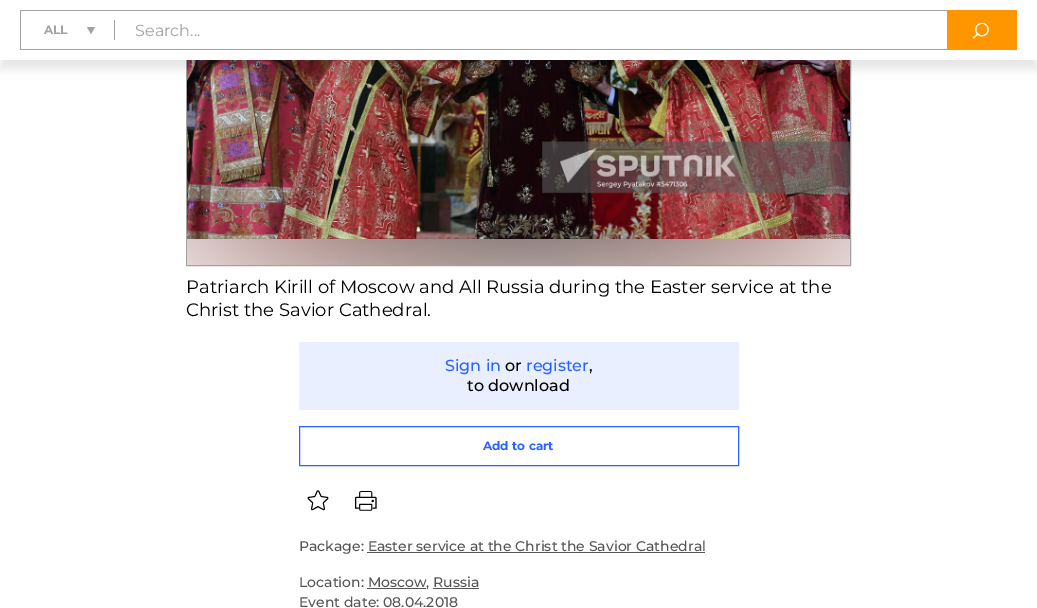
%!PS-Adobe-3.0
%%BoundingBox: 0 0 1037 608
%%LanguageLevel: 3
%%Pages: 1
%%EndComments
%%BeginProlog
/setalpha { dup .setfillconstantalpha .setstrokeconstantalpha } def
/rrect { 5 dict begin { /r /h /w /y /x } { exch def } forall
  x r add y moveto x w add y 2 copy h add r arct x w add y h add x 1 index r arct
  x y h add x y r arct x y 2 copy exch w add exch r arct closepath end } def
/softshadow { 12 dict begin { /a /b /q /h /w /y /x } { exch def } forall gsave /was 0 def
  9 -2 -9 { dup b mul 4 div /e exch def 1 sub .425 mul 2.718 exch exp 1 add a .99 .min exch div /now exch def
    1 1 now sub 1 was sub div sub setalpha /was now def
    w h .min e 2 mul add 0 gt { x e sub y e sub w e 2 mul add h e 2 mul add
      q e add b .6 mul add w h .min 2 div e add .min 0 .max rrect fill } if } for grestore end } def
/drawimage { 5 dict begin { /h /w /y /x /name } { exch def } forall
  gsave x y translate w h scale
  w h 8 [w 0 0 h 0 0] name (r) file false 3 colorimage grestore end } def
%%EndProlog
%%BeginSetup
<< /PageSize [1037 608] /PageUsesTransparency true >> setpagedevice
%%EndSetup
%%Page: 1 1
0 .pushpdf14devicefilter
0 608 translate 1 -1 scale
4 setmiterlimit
1 setgray
0 0 1037 608 rectfill
0.639 0.635 0.635 setrgbcolor
186.5 -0.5 664 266 rectstroke
(images/2.raw) 187 60 663 179 drawimage
0 setgray
0 -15 1037 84 0 5 0.1 softshadow
1 setgray
0 0 1037 60 rectfill
0.639 0.635 0.635 setrgbcolor
20 10 927 1 rectfill
20 49 927 1 rectfill
20 10 1 40 rectfill
newpath 87 27 moveto 95 27 lineto 91 34 lineto closepath fill
114 20 1 20 rectfill
1 0.588 0 setrgbcolor
947 10 70 40 rectfill
(images/1.raw) 972 22 17 17 drawimage
(images/3.raw) 187 239 663 26 drawimage
0.914 0.937 1 setrgbcolor
299 342 440 68 rectfill
0.157 0.392 1 setrgbcolor
299.5 426.5 439 39 rectstroke
(images/4.raw) 307 490 22 21 drawimage
(images/5.raw) 354 491 23 20 drawimage
0.333 setgray
367 552 338 1 rectfill
367 588 59 1 rectfill
433 588 46 1 rectfill
/Montserrat-Bold [12 0 0 -12 0 0] selectfont
0.639 0.635 0.635 setrgbcolor
44 34 moveto (ALL) show
/Montserrat-Regular [16 0 0 -16 0 0] selectfont
135 36 moveto (Search...) show
/Montserrat-Regular [18 0 0 -18 0 0] selectfont
0 setgray
186 293 moveto (Patriarch Kirill of Moscow and All Russia during the Easter service at the) show
186 316 moveto (Christ the Savior Cathedral.) show
/Montserrat-Medium [16 0 0 -16 0 0] selectfont
0.157 0.392 1 setrgbcolor
445 371 moveto (Sign in) show
0 setgray
505 371 moveto (or) show
0.157 0.392 1 setrgbcolor
526 371 moveto (register) show
0 setgray
589 371 moveto (,) show
467 391 moveto (to download) show
/Montserrat-Bold [12 0 0 -12 0 0] selectfont
0.157 0.392 1 setrgbcolor
483 450 moveto (Add to cart) show
/Montserrat-Medium [14 0 0 -14 0 0] selectfont
0.333 setgray
299 551 moveto (Package: Easter service at the Christ the Savior Cathedral) show
299 587 moveto (Location: Moscow, Russia) show
299 607 moveto (Event date: 08.04.2018) show
.poppdf14devicefilter showpage
%%EOF
